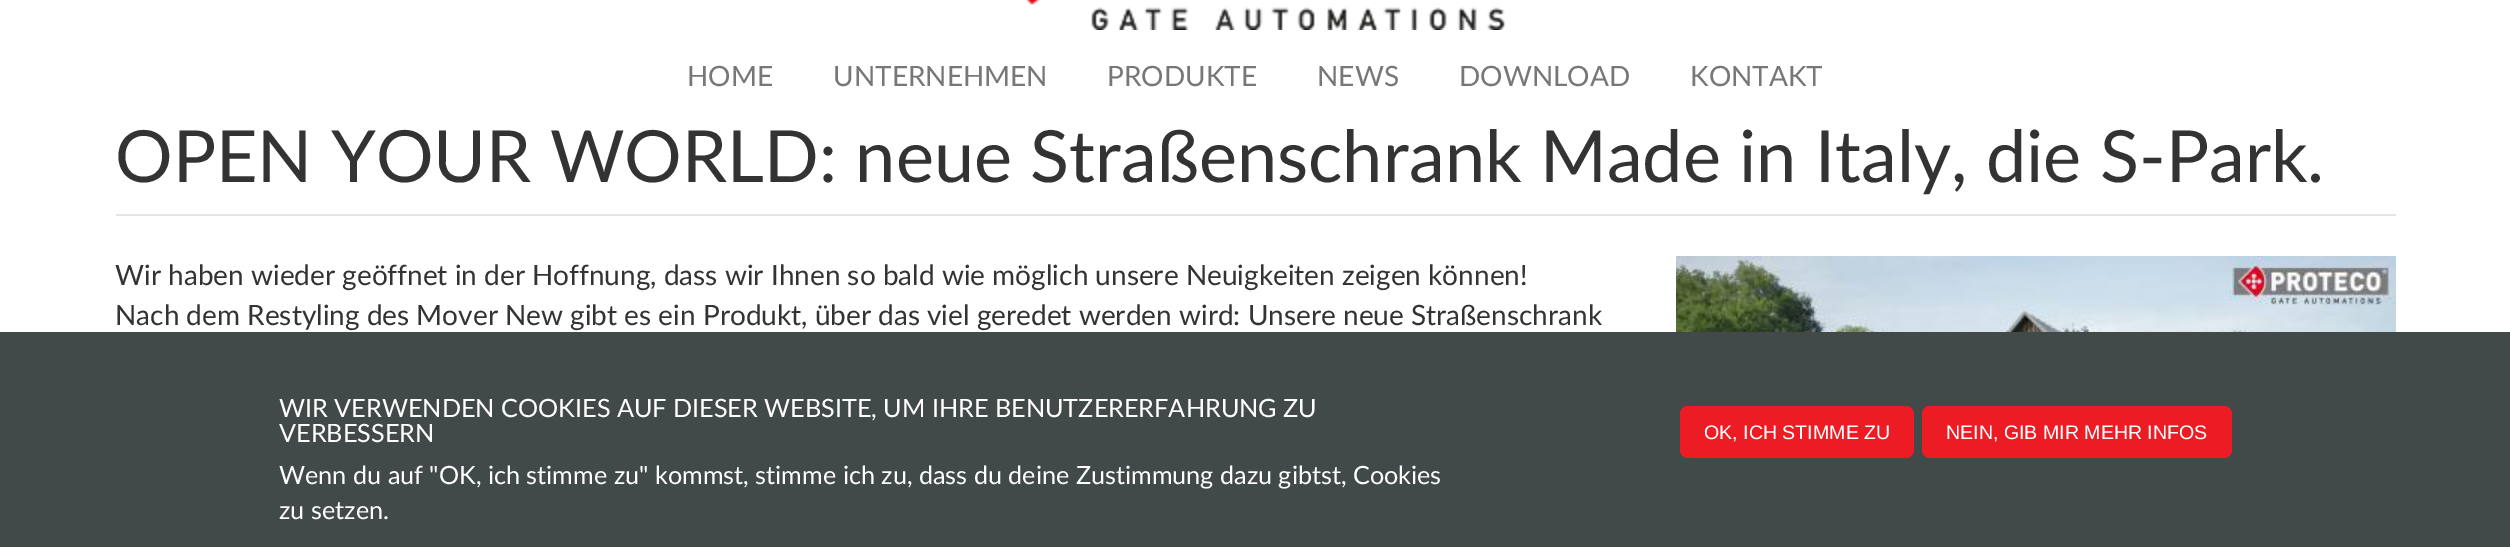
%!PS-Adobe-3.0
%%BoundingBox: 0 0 2510 547
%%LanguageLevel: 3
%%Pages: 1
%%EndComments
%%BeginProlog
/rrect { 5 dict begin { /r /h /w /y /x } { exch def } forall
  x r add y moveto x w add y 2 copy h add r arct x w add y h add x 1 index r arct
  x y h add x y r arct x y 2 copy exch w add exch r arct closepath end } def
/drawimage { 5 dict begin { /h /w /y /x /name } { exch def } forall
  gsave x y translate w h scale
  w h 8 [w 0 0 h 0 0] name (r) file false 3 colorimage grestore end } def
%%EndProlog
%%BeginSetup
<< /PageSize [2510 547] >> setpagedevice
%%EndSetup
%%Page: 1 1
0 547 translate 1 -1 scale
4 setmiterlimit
1 setgray
0 0 2510 547 rectfill
(images/1.raw) 1025 0 480 30 drawimage
0.894 0.894 0.898 setrgbcolor
116 214 2280 2 rectfill
(images/2.raw) 1676 256 720 76 drawimage
0.259 0.286 0.286 setrgbcolor
0 332 2510 215 rectfill
0.929 0.11 0.141 setrgbcolor
1680 406 234 52 8 rrect fill
1922 406 310 52 8 rrect fill
/Lato-Regular [28 0 0 -28 0 0] selectfont
0.467 setgray
687 86 moveto (HOME) show
833 86 moveto (UNTERNEHMEN) show
1107 86 moveto (PRODUKTE) show
1317 86 moveto (NEWS) show
1459 86 moveto (DOWNLOAD) show
1690 86 moveto (KONTAKT) show
/Lato-Regular [72 0 0 -72 0 0] selectfont
0.2 setgray
115 182 moveto (OPEN YOUR WORLD: neue Straßenschrank Made in Italy, die S-Park.) show
/Lato-Regular [28 0 0 -28 0 0] selectfont
115 285 moveto (Wir haben wieder geöffnet in der Hoffnung, dass wir Ihnen so bald wie möglich unsere Neuigkeiten zeigen können!) show
115 325 moveto (Nach dem Restyling des Mover New gibt es ein Produkt, über das viel geredet werden wird: Unsere neue Straßenschrank) show
/Lato-Regular [25.2 0 0 -25.2 0 0] selectfont
1 setgray
279 417 moveto (WIR VERWENDEN COOKIES AUF DIESER WEBSITE, UM IHRE BENUTZERERFAHRUNG ZU) show
279 442 moveto (VERBESSERN) show
279 484 moveto (Wenn du auf "OK, ich stimme zu" kommst, stimme ich zu, dass du deine Zustimmung dazu gibtst, Cookies) show
279 519 moveto (zu setzen.) show
/LiberationSans-Regular [19.6 0 0 -19.6 0 0] selectfont
1704 439 moveto (OK, ICH STIMME ZU) show
1946 439 moveto (NEIN, GIB MIR MEHR INFOS) show
showpage
%%EOF
